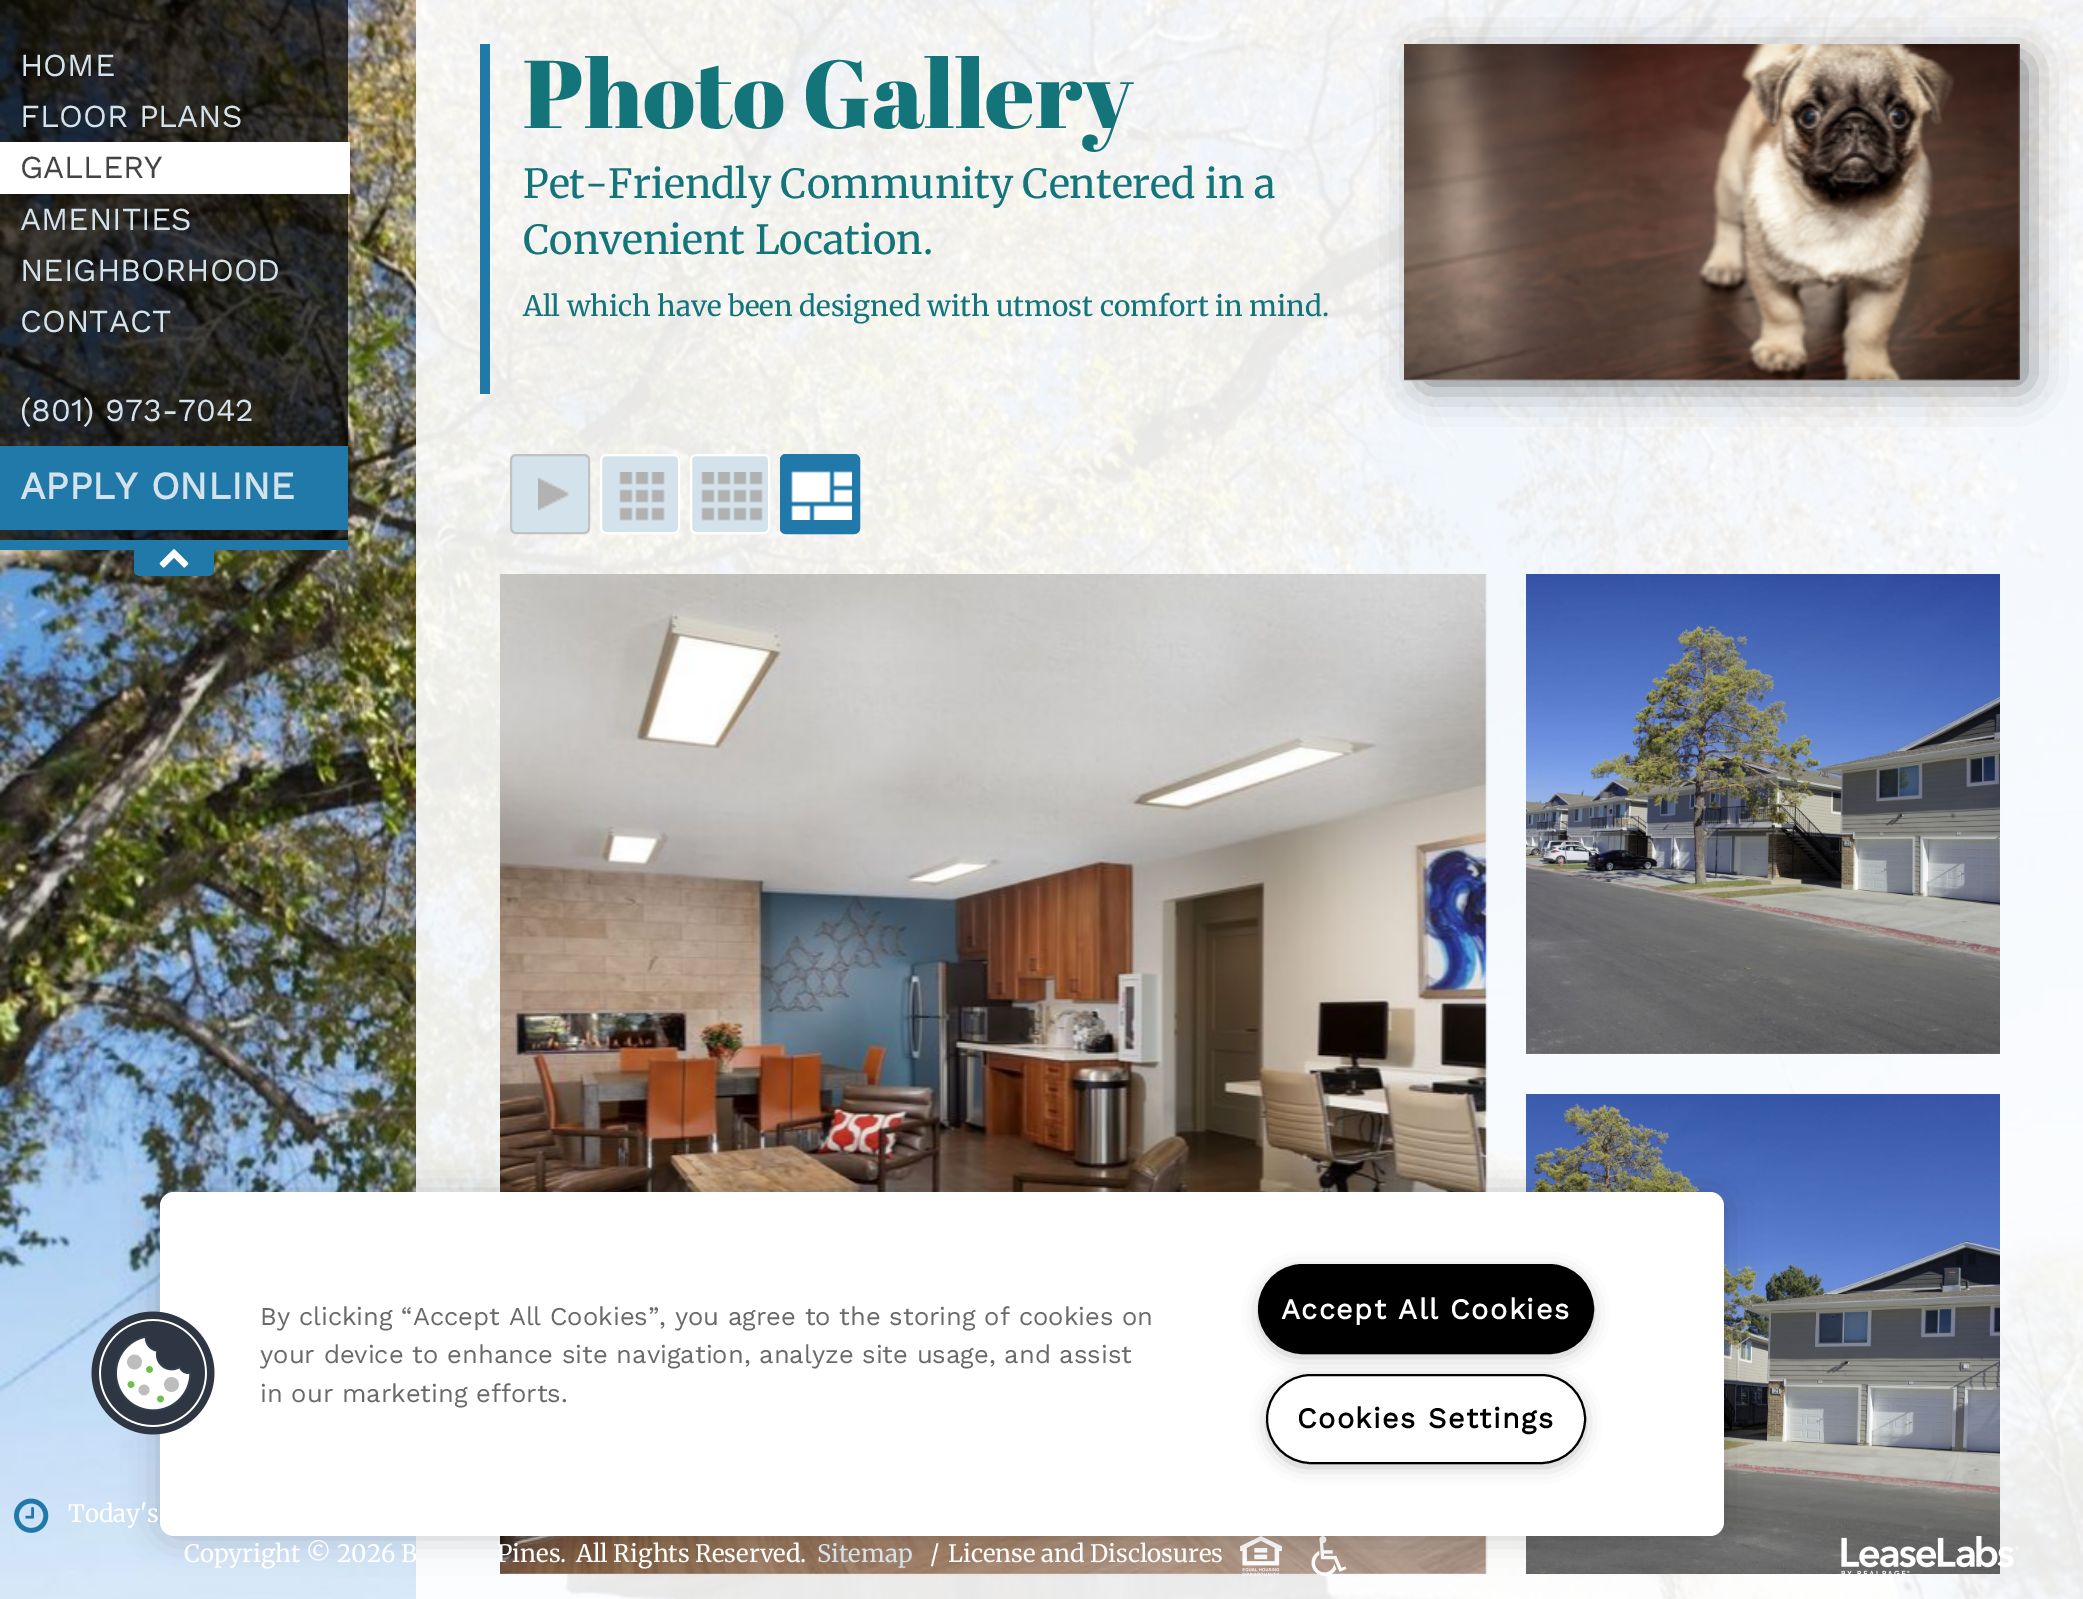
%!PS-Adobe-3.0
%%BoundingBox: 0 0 2083 1599
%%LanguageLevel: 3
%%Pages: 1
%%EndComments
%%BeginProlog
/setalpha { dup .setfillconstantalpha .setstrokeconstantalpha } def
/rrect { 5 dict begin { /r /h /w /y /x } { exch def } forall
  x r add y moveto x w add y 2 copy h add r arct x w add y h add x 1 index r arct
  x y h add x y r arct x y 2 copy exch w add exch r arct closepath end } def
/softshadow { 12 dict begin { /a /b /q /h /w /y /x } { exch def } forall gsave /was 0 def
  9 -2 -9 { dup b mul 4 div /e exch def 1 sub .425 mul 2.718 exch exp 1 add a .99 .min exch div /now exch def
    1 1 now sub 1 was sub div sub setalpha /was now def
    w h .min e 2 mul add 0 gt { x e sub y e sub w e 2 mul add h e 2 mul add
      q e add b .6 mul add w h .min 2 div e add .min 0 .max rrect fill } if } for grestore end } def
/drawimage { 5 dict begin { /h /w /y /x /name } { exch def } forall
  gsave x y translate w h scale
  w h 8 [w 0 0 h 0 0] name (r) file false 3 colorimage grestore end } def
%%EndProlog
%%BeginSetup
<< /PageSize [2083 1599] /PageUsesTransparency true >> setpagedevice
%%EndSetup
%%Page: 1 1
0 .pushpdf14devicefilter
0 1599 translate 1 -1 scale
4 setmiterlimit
1 setgray
0 0 2083 1599 rectfill
(images/2.raw) 0 0 2083 1599 drawimage
0.7 setalpha
0 setgray
0 0 348 540 rectfill
1 setalpha
0.129 0.475 0.667 setrgbcolor
0 540 348 10 rectfill
1 setgray
0 142 350 52 rectfill
0.129 0.475 0.667 setrgbcolor
0 446 348 84 rectfill
newpath 134 540 moveto 214 540 lineto 214 570 lineto 214 573.5 211.5 576 208 576 curveto 140 576 lineto 136.5 576 134 573.5 134 570 curveto closepath fill
(images/1.raw) 159 549 30 19 drawimage
0.9 setalpha
1 setgray
416 0 1667 1599 rectfill
1 setalpha
0.129 0.475 0.667 setrgbcolor
480 44 10 350 rectfill
0 setgray
1424 62 600 320 0 20 0.55 softshadow
(images/3.raw) 1404 44 616 337 drawimage
0.827 0.886 0.922 setrgbcolor
510 454 80 80 6 rrect fill
(images/4.raw) 538 476 31 36 drawimage
0.761 setgray
2 setlinewidth
511 455 78 78 5 rrect stroke
0.827 0.886 0.922 setrgbcolor
600 454 80 80 6 rrect fill
(images/5.raw) 619 472 46 49 drawimage
1 setgray
601 455 78 78 5 rrect stroke
0.827 0.886 0.922 setrgbcolor
690 454 80 80 6 rrect fill
(images/6.raw) 701 472 62 49 drawimage
1 setgray
691 455 78 78 5 rrect stroke
0.129 0.475 0.667 setrgbcolor
780 454 80 80 6 rrect fill
(images/7.raw) 791 471 61 49 drawimage
781 455 78 78 5 rrect stroke
(images/8.raw) 500 574 988 1000 drawimage
(images/9.raw) 1526 574 474 480 drawimage
(images/10.raw) 1526 1094 474 480 drawimage
(images/11.raw) 14 1498 35 35 drawimage
(images/12.raw) 1240 1536 42 40 drawimage
(images/13.raw) 1311 1536 36 40 drawimage
(images/14.raw) 1841 1536 178 40 drawimage
0 setgray
160 1192 1564 344 14 18 0.2 softshadow
1 setgray
160 1192 1564 344 14 rrect fill
(images/15.raw) 91 1311 124 124 drawimage
0.6 setgray
1264 1274 324 78 39 10 1 softshadow
0 setgray
1259 1265 334 88 44 rrect gsave fill grestore
stroke
0.6 setgray
1272 1384 308 78 39 10 1 softshadow
1 setgray
1267 1375 318 88 44 rrect gsave fill grestore
0 setgray
stroke
/WorkSans-Regular [32 0 0 -32 0 0] selectfont
0.827 0.886 0.922 setrgbcolor
20 76 moveto (HOME) show
20 127 moveto (FLOOR PLANS) show
0.267 setgray
20 178 moveto (GALLERY) show
0.827 0.886 0.922 setrgbcolor
20 230 moveto (AMENITIES) show
20 281 moveto (NEIGHBORHOOD) show
20 332 moveto (CONTACT) show
20 421 moveto (\(801\) 973-7042) show
/WorkSans-Bold [38.5 0 0 -38.5 0 0] selectfont
20 499 moveto (APPLY ONLINE) show
/AbrilFatface-Regular [96 0 0 -96 0 0] selectfont
0.075 0.455 0.478 setrgbcolor
523 128 moveto (Photo Gallery) show
/Merriweather-Light [40 0 0 -40 0 0] selectfont
523 198 moveto (Pet-Friendly Community Centered in a) show
523 254 moveto (Convenient Location.) show
/Merriweather-Light [28 0 0 -28 0 0] selectfont
523 316 moveto (All which have been designed with utmost comfort in mind.) show
/Merriweather-Light [24 0 0 -24 0 0] selectfont
1 setgray
68 1522 moveto (Today's) show
184 1562 moveto (Copyright © 2026 B) show
497 1562 moveto (Pines.) show
576 1562 moveto (All Rights Reserved.) show
0.827 0.886 0.922 setrgbcolor
817 1562 moveto (Sitemap) show
1 setgray
930 1562 moveto (/) show
948 1562 moveto (License and Disclosures) show
/WorkSans-Regular [25.6 0 0 -25.6 0 0] selectfont
0.412 setgray
260 1325 moveto (By clicking “Accept All Cookies”, you agree to the storing of cookies on) show
260 1363 moveto (your device to enhance site navigation, analyze site usage, and assist) show
260 1402 moveto (in our marketing efforts.) show
/WorkSans-Bold [28.75 0 0 -28.75 0 0] selectfont
1 setgray
1281 1319 moveto 1.4 0 (Accept All Cookies) ashow
0 setgray
1297 1428 moveto 1.4 0 (Cookies Settings) ashow
.poppdf14devicefilter showpage
%%EOF
